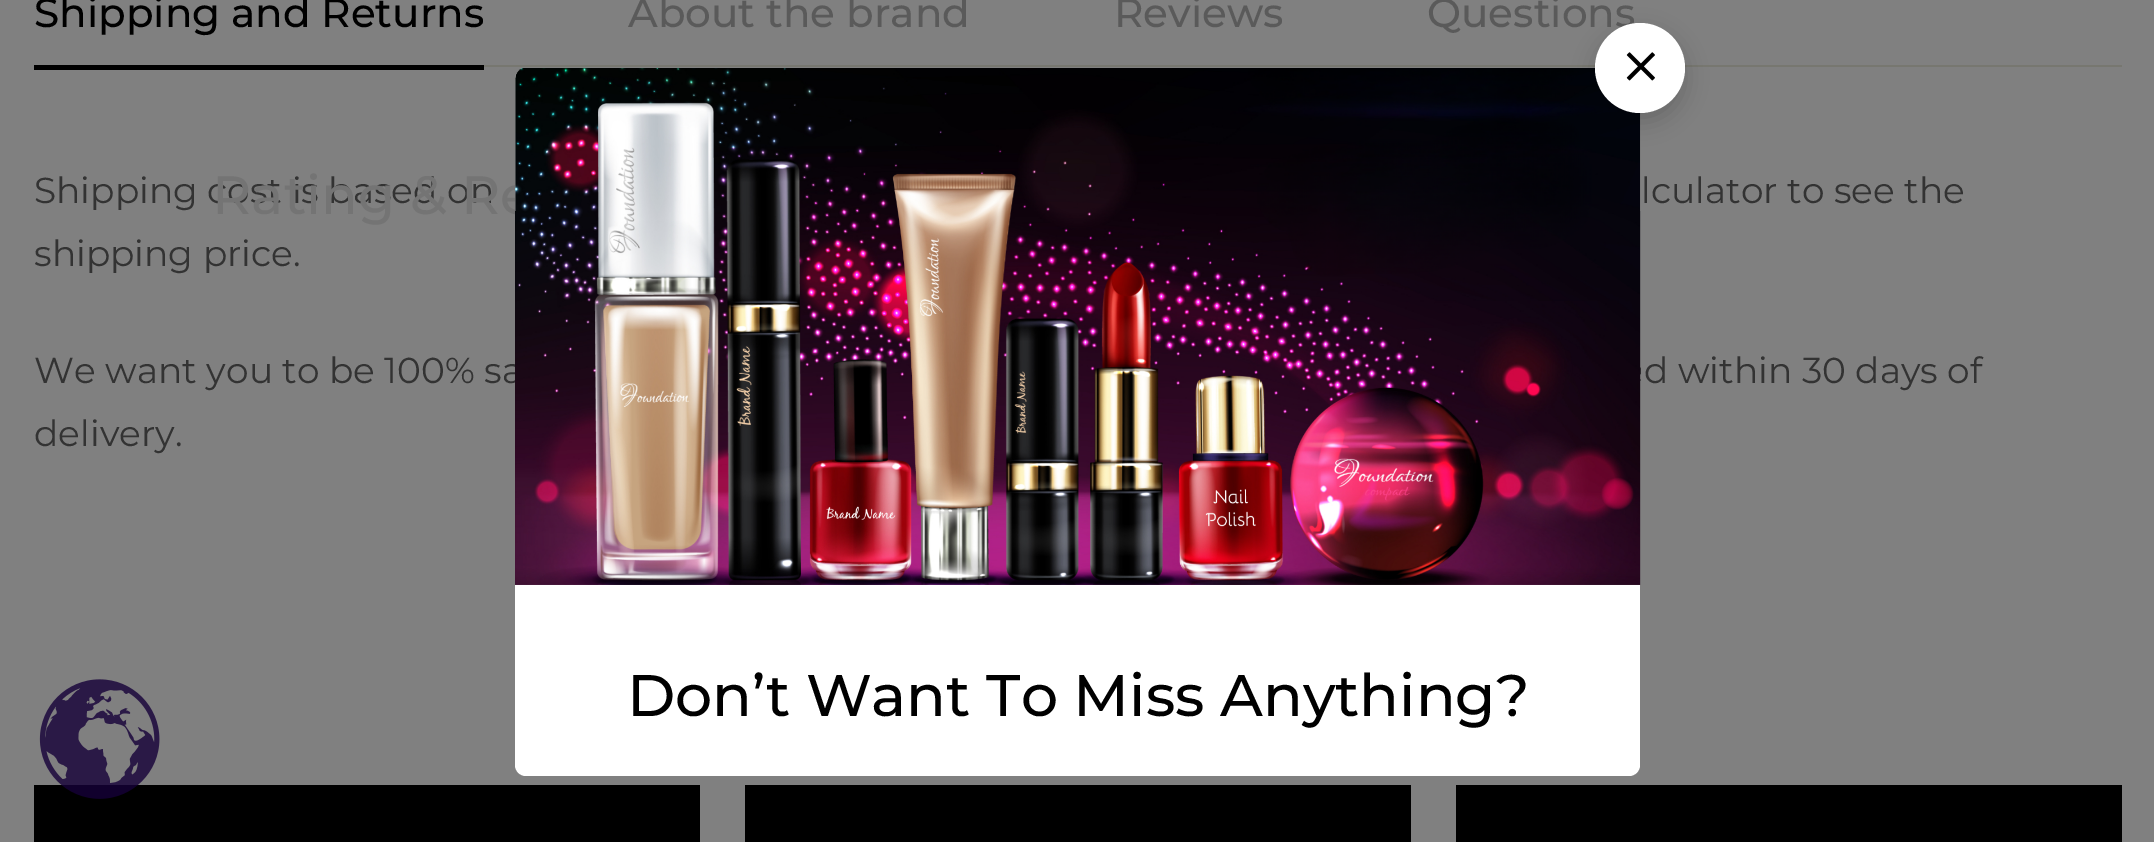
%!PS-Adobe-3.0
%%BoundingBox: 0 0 2154 842
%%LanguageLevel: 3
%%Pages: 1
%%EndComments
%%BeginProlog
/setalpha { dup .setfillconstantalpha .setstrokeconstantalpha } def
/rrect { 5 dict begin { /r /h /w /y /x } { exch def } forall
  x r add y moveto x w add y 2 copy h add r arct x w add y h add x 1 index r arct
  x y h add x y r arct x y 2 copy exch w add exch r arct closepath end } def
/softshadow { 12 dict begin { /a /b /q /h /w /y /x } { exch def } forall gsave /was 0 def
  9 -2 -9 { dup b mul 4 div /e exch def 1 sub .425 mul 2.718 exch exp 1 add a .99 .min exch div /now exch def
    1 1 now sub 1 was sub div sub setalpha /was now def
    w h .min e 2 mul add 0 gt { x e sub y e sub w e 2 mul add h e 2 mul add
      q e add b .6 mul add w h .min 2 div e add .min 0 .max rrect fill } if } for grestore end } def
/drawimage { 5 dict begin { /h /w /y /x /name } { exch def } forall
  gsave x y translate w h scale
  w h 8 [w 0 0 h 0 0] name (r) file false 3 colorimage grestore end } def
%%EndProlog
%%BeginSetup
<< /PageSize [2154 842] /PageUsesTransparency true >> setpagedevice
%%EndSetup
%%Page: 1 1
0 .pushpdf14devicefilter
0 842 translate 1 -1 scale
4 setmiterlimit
0.502 setgray
0 0 2154 842 rectfill
0 setgray
34 65 450 5 rectfill
0.467 0.467 0.439 setrgbcolor
484 65 1638 2 rectfill
0 setgray
34 785 666 57 rectfill
745 785 666 57 rectfill
1456 785 666 57 rectfill
(images/1.raw) 39 679 121 120 drawimage
/Montserrat-Medium [40.5 0 0 -40.5 0 0] selectfont
34 27 moveto (Shipping and Returns) show
0.353 setgray
628 27 moveto (About the brand) show
1114 27 moveto (Reviews) show
1427 27 moveto (Questions) show
/Montserrat-Regular [36 0 0 -36 0 0] selectfont
0.2 setgray
34 203 moveto (Shipping cost is based on) show
/Montserrat-Medium [54 0 0 -54 0 0] selectfont
0.455 setgray
212 214 moveto (Rating & Re) show
/Montserrat-Regular [36 0 0 -36 0 0] selectfont
0.2 setgray
1641 203 moveto (lculator to see the) show
34 266 moveto (shipping price.) show
34 383 moveto (We want you to be 100% sa) show
1644 383 moveto (d within 30 days of) show
34 446 moveto (delivery.) show
1 setgray
515 68 1125 708 11 rrect fill
(images/3.raw) 515 68 1126 517 drawimage
0 setgray
1595 32 90 90 45 11 0.17 softshadow
1 setgray
newpath 1640 68 45 0 360 arc closepath fill
(images/2.raw) 1626 52 29 29 drawimage
/Montserrat-Medium [58.5 0 0 -58.5 0 0] selectfont
0 setgray
627 716 moveto (Don’t Want To Miss Anything?) show
.poppdf14devicefilter showpage
%%EOF
